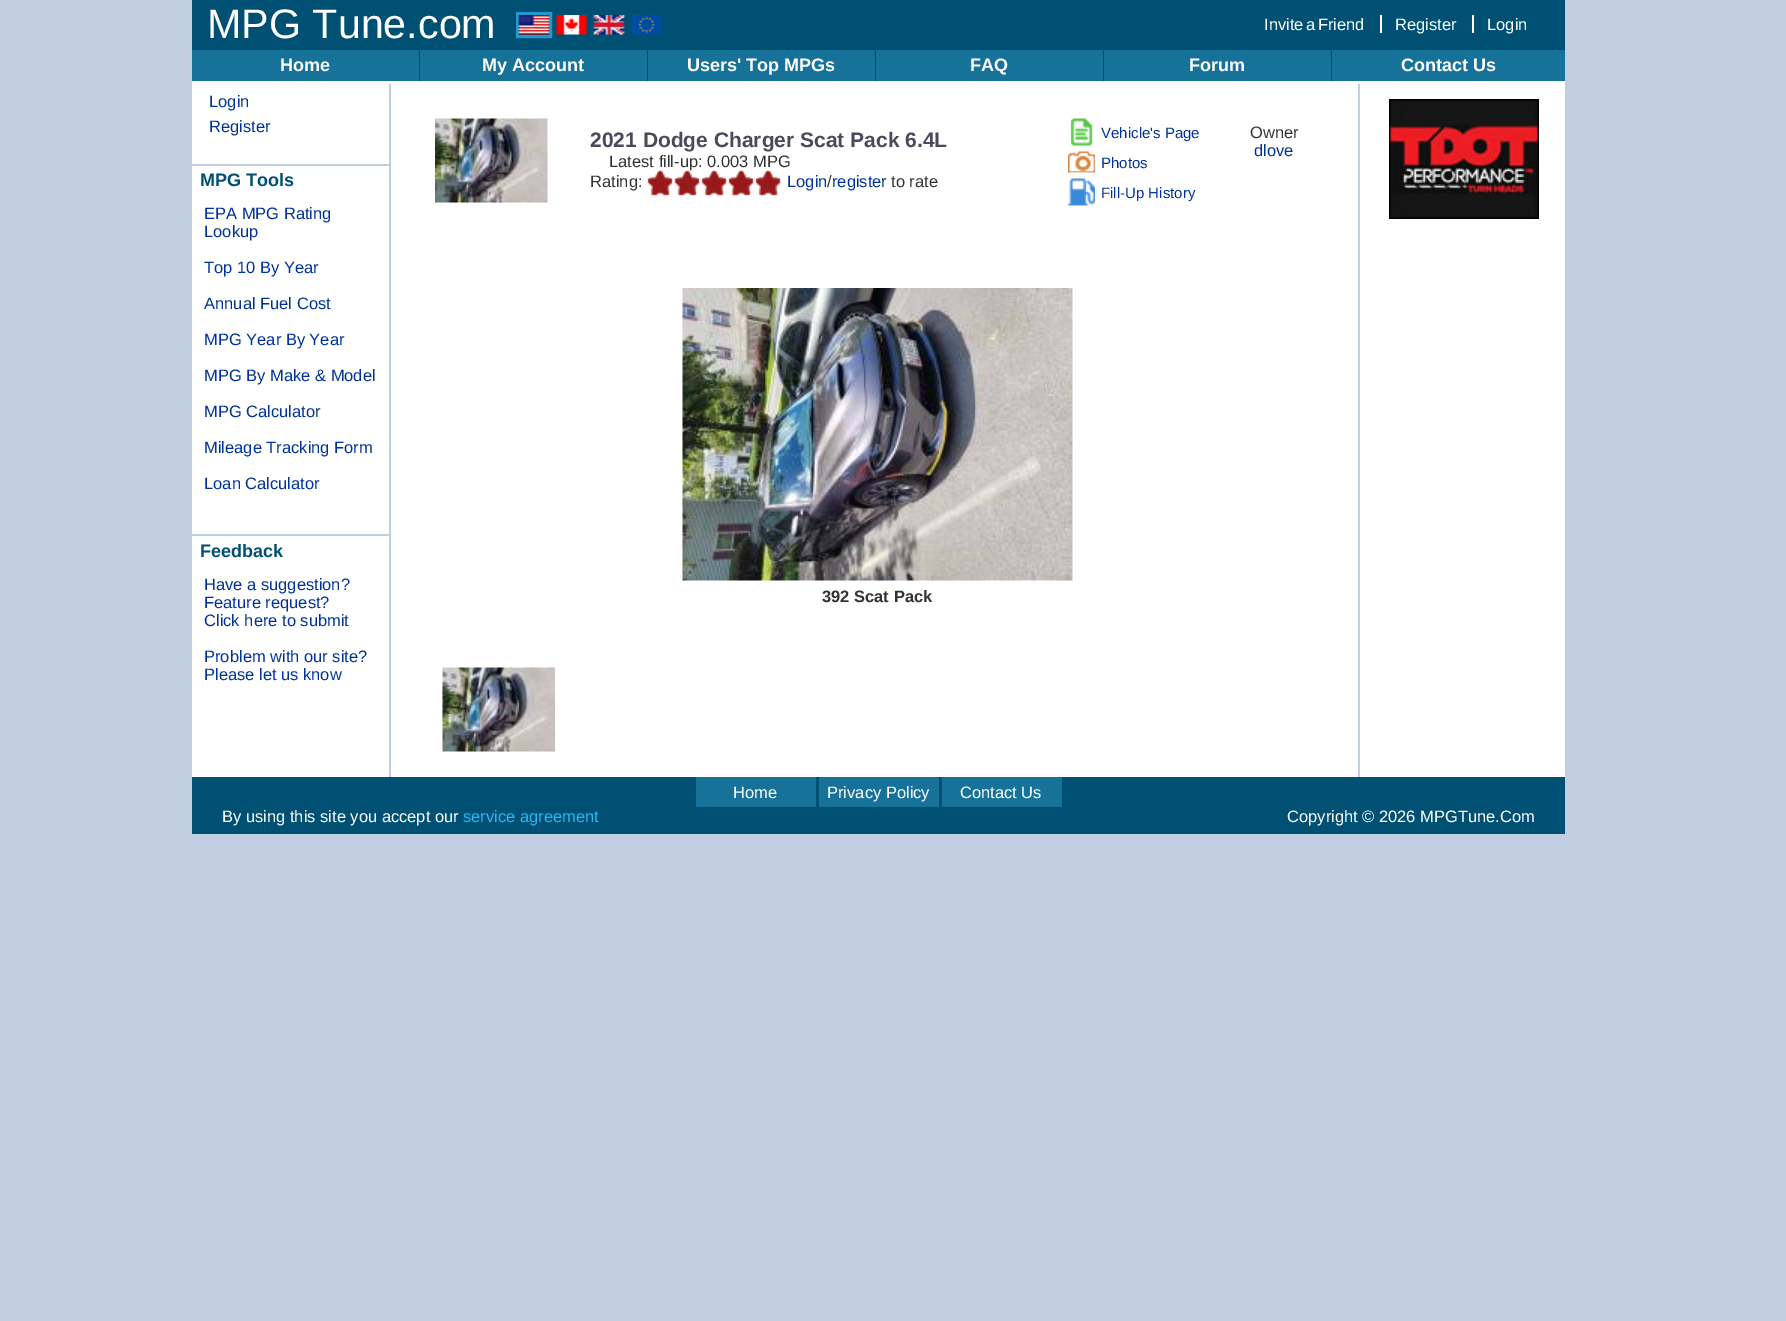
%!PS-Adobe-3.0
%%BoundingBox: 0 0 1786 1321
%%LanguageLevel: 3
%%Pages: 1
%%EndComments
%%BeginProlog
/drawimage { 5 dict begin { /h /w /y /x /name } { exch def } forall
  gsave x y translate w h scale
  w h 8 [w 0 0 h 0 0] name (r) file false 3 colorimage grestore end } def
%%EndProlog
%%BeginSetup
<< /PageSize [1786 1321] >> setpagedevice
%%EndSetup
%%Page: 1 1
0 1321 translate 1 -1 scale
4 setmiterlimit
0.757 0.808 0.882 setrgbcolor
0 0 1786 1321 rectfill
0 0.314 0.455 setrgbcolor
192 0 1373 50 rectfill
0.118 0.604 0.816 setrgbcolor
3 setlinewidth
517.5 13.5 33 23 rectstroke
(images/1.raw) 518 15 32 20 drawimage
(images/2.raw) 556 15 31 20 drawimage
(images/3.raw) 593 15 32 20 drawimage
(images/4.raw) 631 15 31 20 drawimage
1 setgray
1380 15 2 18 rectfill
1472 15 2 18 rectfill
0 0.314 0.455 setrgbcolor
419 50 913 31 rectfill
0.09 0.447 0.604 setrgbcolor
192 50 227 31 rectfill
420 50 227 31 rectfill
648 50 227 31 rectfill
876 50 227 31 rectfill
1104 50 227 31 rectfill
1332 50 233 31 rectfill
1 setgray
192 81 1373 696 rectfill
0.757 0.808 0.882 setrgbcolor
389 84 2 695 rectfill
192 164 197 2 rectfill
192 534 197 2 rectfill
(images/5.raw) 435 118 113 85 drawimage
(images/9.raw) 1070 118 23 28 drawimage
(images/10.raw) 1068 151 27 22 drawimage
(images/11.raw) 1068 178 27 28 drawimage
(images/12.raw) 682 288 391 293 drawimage
(images/13.raw) 442 667 113 85 drawimage
1358 84 2 695 rectfill
(images/14.raw) 1389 99 150 120 drawimage
0 0.314 0.455 setrgbcolor
192 777 1373 57 rectfill
0.09 0.447 0.604 setrgbcolor
696 777 120 30 rectfill
819 777 120 30 rectfill
942 777 120 30 rectfill
/LiberationSans-Regular [41.25 0 0 -41.25 0 0] selectfont
1 setgray
207 38 moveto (MPG Tune.com) show
/LiberationSans-Regular [16.5 0 0 -16.5 0 0] selectfont
1264 30 moveto -2 0 32 (Invite a Friend) widthshow
1395 30 moveto (Register) show
1487 30 moveto (Login) show
/LiberationSans-Bold [18 0 0 -18 0 0] selectfont
280 71 moveto (Home) show
482 71 moveto (My Account) show
687 71 moveto (Users' Top MPGs) show
970 71 moveto (FAQ) show
1189 71 moveto (Forum) show
1401 71 moveto (Contact Us) show
/LiberationSans-Regular [16.5 0 0 -16.5 0 0] selectfont
0 0.2 0.6 setrgbcolor
209 107 moveto (Login) show
209 132 moveto (Register) show
/LiberationSans-Bold [18 0 0 -18 0 0] selectfont
0 0.314 0.455 setrgbcolor
200 186 moveto (MPG Tools) show
/LiberationSans-Regular [16.5 0 0 -16.5 0 0] selectfont
0 0.2 0.6 setrgbcolor
204 219 moveto (EPA MPG Rating) show
204 237 moveto (Lookup) show
204 273 moveto (Top 10 By Year) show
204 309 moveto (Annual Fuel Cost) show
204 345 moveto (MPG Year By Year) show
204 381 moveto (MPG By Make & Model) show
204 417 moveto (MPG Calculator) show
204 453 moveto (Mileage Tracking Form) show
204 489 moveto (Loan Calculator) show
/LiberationSans-Bold [18 0 0 -18 0 0] selectfont
0 0.314 0.455 setrgbcolor
200 557 moveto (Feedback) show
/LiberationSans-Regular [16.5 0 0 -16.5 0 0] selectfont
0 0.2 0.6 setrgbcolor
204 590 moveto (Have a suggestion?) show
204 608 moveto (Feature request?) show
204 626 moveto (Click here to submit) show
204 662 moveto (Problem with our site?) show
204 680 moveto (Please let us know) show
/LiberationSans-Bold [21 0 0 -21 0 0] selectfont
0.294 0.29 0.357 setrgbcolor
590 147 moveto (2021 Dodge Charger Scat Pack 6.4L) show
/LiberationSans-Regular [16.5 0 0 -16.5 0 0] selectfont
0.2 setgray
609 167 moveto (Latest fill-up: 0.003 MPG) show
590 187 moveto (Rating:) show
(images/6.raw) 647 170 26 26 drawimage
(images/7.raw) 674 170 26 26 drawimage
(images/6.raw) 701 170 26 26 drawimage
(images/6.raw) 728 170 26 26 drawimage
(images/8.raw) 755 170 26 26 drawimage
0 0.2 0.6 setrgbcolor
787 187 moveto (Login register) show
0.2 setgray
827 187 moveto (/) show
891 187 moveto (to rate) show
/LiberationSans-Regular [15 0 0 -15 0 0] selectfont
0 0.2 0.6 setrgbcolor
1101 138 moveto (Vehicle's Page) show
1101 168 moveto (Photos) show
1101 198 moveto (Fill-Up History) show
/LiberationSans-Regular [16.5 0 0 -16.5 0 0] selectfont
0.2 setgray
1250 138 moveto (Owner) show
0 0.2 0.6 setrgbcolor
1254 156 moveto (dlove) show
/LiberationSans-Bold [16.5 0 0 -16.5 0 0] selectfont
0.2 setgray
822 602 moveto (392 Scat Pack) show
/LiberationSans-Regular [16.5 0 0 -16.5 0 0] selectfont
1 setgray
733 798 moveto (Home) show
827 798 moveto (Privacy Policy) show
960 798 moveto (Contact Us) show
222 822 moveto (By using this site you accept our) show
0.149 0.722 0.969 setrgbcolor
463 822 moveto (service agreement) show
1 setgray
1287 822 moveto (Copyright © 2026 MPGTune.Com) show
showpage
%%EOF
